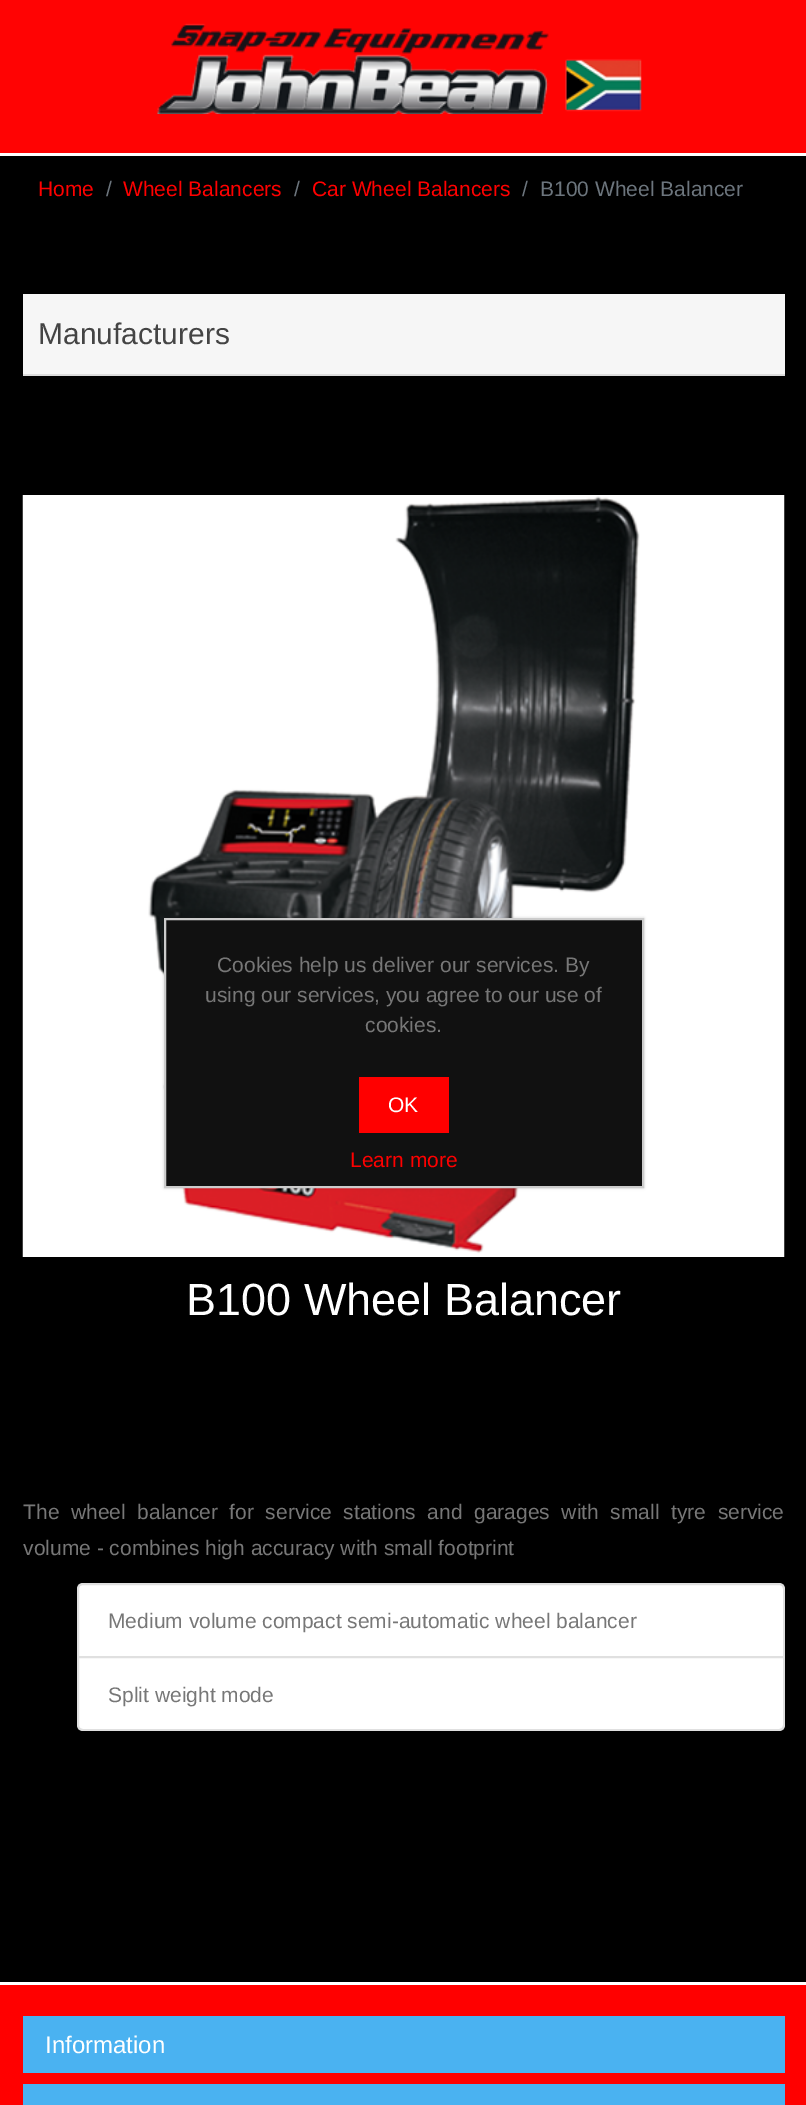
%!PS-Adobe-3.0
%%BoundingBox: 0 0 806 2105
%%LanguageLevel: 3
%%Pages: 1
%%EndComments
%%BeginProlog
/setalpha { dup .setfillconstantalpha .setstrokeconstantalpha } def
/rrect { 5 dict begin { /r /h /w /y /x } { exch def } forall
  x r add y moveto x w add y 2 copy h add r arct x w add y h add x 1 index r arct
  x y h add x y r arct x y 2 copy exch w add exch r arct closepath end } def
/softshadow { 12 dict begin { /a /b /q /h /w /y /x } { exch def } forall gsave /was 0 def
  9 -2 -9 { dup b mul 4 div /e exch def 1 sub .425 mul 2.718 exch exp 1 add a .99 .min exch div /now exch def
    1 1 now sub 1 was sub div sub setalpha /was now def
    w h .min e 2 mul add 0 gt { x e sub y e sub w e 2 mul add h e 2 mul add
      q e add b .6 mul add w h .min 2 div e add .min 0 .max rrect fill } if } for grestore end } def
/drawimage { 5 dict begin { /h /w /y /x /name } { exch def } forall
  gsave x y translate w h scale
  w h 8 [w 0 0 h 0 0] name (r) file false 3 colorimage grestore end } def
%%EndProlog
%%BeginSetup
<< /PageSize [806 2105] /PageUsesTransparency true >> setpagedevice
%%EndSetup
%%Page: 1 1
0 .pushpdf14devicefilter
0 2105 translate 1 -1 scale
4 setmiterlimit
0 setgray
0 0 806 2105 rectfill
1 0.012 0.012 setrgbcolor
0 0 806 153 rectfill
1 setgray
0 153 806 3 rectfill
(images/1.raw) 157 23 485 91 drawimage
0.965 setgray
23 294 762 80 rectfill
0.867 setgray
23 374 762 2 rectfill
(images/2.raw) 22 495 763 762 drawimage
1 setgray
newpath 83 1583 moveto 779 1583 lineto 782.5 1583 785 1585.5 785 1589 curveto 785 1658 lineto 77 1658 lineto 77 1589 lineto 77 1585.5 79.5 1583 83 1583 curveto closepath fill
0.12 setalpha
0 setgray
2 setlinewidth
newpath 83 1584 moveto 779 1584 lineto 782 1584 784 1586 784 1589 curveto 784 1657 lineto 78 1657 lineto 78 1589 lineto 78 1586 80 1584 83 1584 curveto closepath stroke
1 setalpha
1 setgray
newpath 77 1656 moveto 785 1656 lineto 785 1725 lineto 785 1728.5 782.5 1731 779 1731 curveto 83 1731 lineto 79.5 1731 77 1728.5 77 1725 curveto closepath fill
0.12 setalpha
0 setgray
newpath 78 1657 moveto 784 1657 lineto 784 1725 lineto 784 1728 782 1730 779 1730 curveto 83 1730 lineto 80 1730 78 1728 78 1725 curveto closepath stroke
1 setalpha
1 0 0 setrgbcolor
0 1985 806 120 rectfill
1 setgray
0 1982 806 3 rectfill
0.29 0.698 0.945 setrgbcolor
23 2016 762 57 rectfill
23 2084 762 21 rectfill
0 setgray
164 918 480 270 0 1.5 0.15 softshadow
0.067 setgray
newpath 165 919 moveto 643 919 lineto 643 1187 lineto 165 1187 lineto closepath gsave fill grestore
0.8 setgray
stroke
1 0 0 setrgbcolor
359 1077 90 56 rectfill
/LiberationSans-Regular [21 0 0 -21 0 0] selectfont
38 196 moveto (Home) show
0.424 0.459 0.49 setrgbcolor
106 196 moveto (/) show
1 0 0 setrgbcolor
123 196 moveto (Wheel Balancers) show
0.424 0.459 0.49 setrgbcolor
294 196 moveto (/) show
1 0 0 setrgbcolor
312 196 moveto (Car Wheel Balancers) show
0.424 0.459 0.49 setrgbcolor
522 196 moveto (/) show
540 196 moveto (B100 Wheel Balancer) show
/LiberationSans-Regular [30 0 0 -30 0 0] selectfont
0.267 setgray
38 344 moveto (Manufacturers) show
/LiberationSans-Regular [45 0 0 -45 0 0] selectfont
1 setgray
186 1315 moveto (B100 Wheel Balancer) show
/LiberationSans-Regular [21 0 0 -21 0 0] selectfont
0.467 setgray
23 1519 moveto 5.75 0 32 (The wheel balancer for service stations and garages with small tyre service) widthshow
23 1555 moveto (volume - combines high accuracy with small footprint) show
108 1628 moveto (Medium volume compact semi-automatic wheel balancer) show
108 1702 moveto (Split weight mode) show
/LiberationSans-Regular [24 0 0 -24 0 0] selectfont
1 setgray
45 2053 moveto (Information) show
/LiberationSans-Regular [21 0 0 -21 0 0] selectfont
0.467 setgray
217 972 moveto (Cookies help us deliver our services. By) show
205 1002 moveto (using our services, you agree to our use of) show
365 1032 moveto (cookies.) show
1 setgray
388 1112 moveto (OK) show
1 0 0 setrgbcolor
350 1167 moveto (Learn more) show
.poppdf14devicefilter showpage
%%EOF
